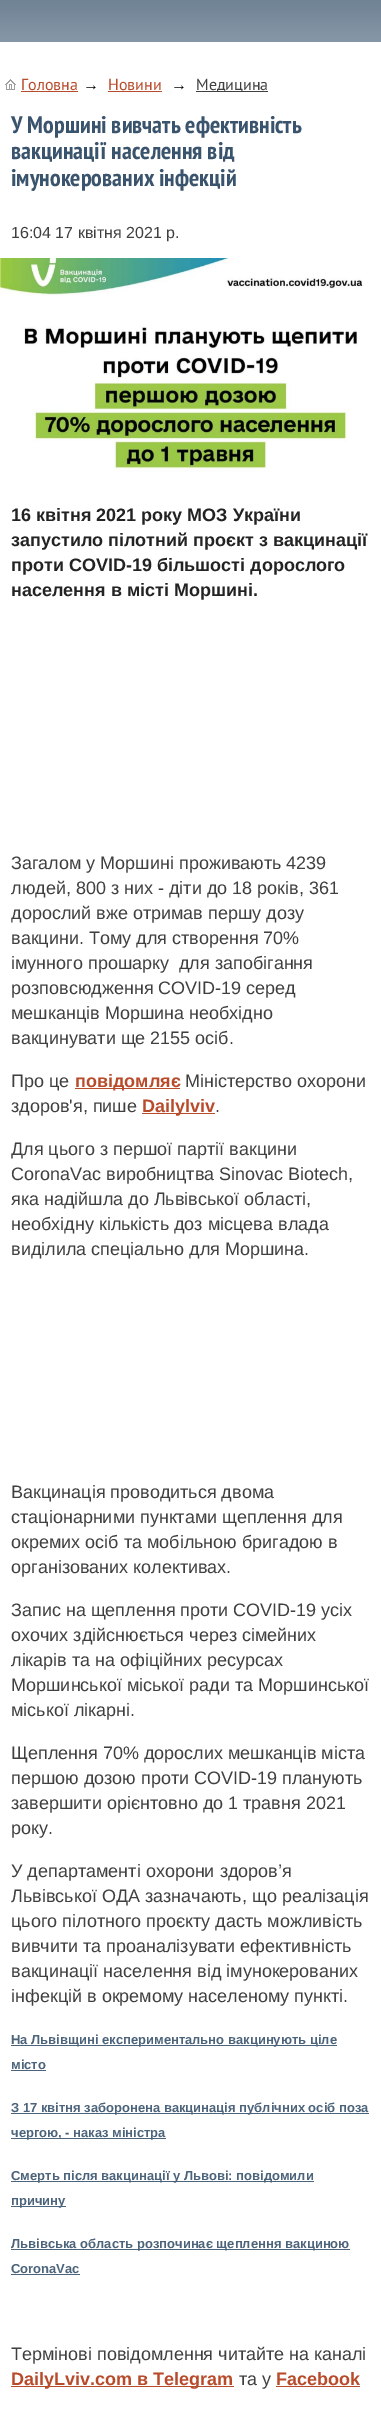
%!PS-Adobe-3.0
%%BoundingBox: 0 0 381 2417
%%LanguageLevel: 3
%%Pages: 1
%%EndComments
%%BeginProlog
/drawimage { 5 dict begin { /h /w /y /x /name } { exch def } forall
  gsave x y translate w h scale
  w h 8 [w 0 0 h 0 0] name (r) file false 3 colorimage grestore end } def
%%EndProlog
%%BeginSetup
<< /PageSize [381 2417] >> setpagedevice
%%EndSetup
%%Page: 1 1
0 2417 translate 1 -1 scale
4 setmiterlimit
1 setgray
0 0 381 2417 rectfill
(images/1.raw) 0 0 381 42 drawimage
(images/2.raw) 5 79 11 11 drawimage
0.722 0.294 0.165 setrgbcolor
21 91 57 1 rectfill
108 91 54 1 rectfill
0.251 setgray
196 91 72 1 rectfill
(images/3.raw) 0 258 363 215 drawimage
0.722 0.294 0.165 setrgbcolor
75 1088 105 1 rectfill
142 1113 73 1 rectfill
0.298 0.392 0.482 setrgbcolor
11 2045 326 1 rectfill
11 2070 35 1 rectfill
11 2113 358 1 rectfill
11 2138 155 1 rectfill
11 2181 303 1 rectfill
11 2206 55 1 rectfill
11 2249 339 1 rectfill
11 2274 69 1 rectfill
0.722 0.294 0.165 setrgbcolor
11 2386 223 1 rectfill
276 2386 84 1 rectfill
/PTSans-Regular [16 0 0 -16 0 0] selectfont
21 90 moveto (Головна) show
/LiberationSerif-Regular [16 0 0 -16 0 0] selectfont
0 setgray
83 90 moveto (→) show
/PTSans-Regular [16 0 0 -16 0 0] selectfont
0.722 0.294 0.165 setrgbcolor
108 90 moveto (Новини) show
/LiberationSerif-Regular [16 0 0 -16 0 0] selectfont
0 setgray
171 90 moveto (→) show
/PTSans-Regular [16 0 0 -16 0 0] selectfont
0.251 setgray
196 90 moveto (Медицина) show
/PTSansNarrow-Bold [24 0 0 -24 0 0] selectfont
0.227 0.329 0.427 setrgbcolor
11 133 moveto (У Моршині вивчать ефективність) show
11 159 moveto (вакцинації населення від) show
11 186 moveto (імунокерованих інфекцій) show
/LiberationSans-Regular [16 0 0 -16 0 0] selectfont
0.251 setgray
11 238 moveto (16:04 17 квітня 2021 р.) show
/LiberationSans-Bold [18 0 0 -18 0 0] selectfont
0.137 setgray
11 521 moveto (16 квітня 2021 року МОЗ України) show
11 546 moveto (запустило пілотний проєкт з вакцинації) show
11 571 moveto (проти COVID-19 більшості дорослого) show
11 596 moveto (населення в місті Моршині.) show
/LiberationSans-Regular [18 0 0 -18 0 0] selectfont
0.251 setgray
11 869 moveto (Загалом у Моршині проживають 4239) show
11 894 moveto (людей, 800 з них - діти до 18 років, 361) show
11 919 moveto (дорослий вже отримав першу дозу) show
11 944 moveto (вакцини. Тому для створення 70%) show
11 969 moveto (імунного прошарку  для запобігання) show
11 994 moveto (розповсюдження COVID-19 серед) show
11 1019 moveto (мешканців Моршина необхідно) show
11 1044 moveto (вакцинувати ще 2155 осіб.) show
11 1087 moveto (Про це) show
/LiberationSans-Bold [18 0 0 -18 0 0] selectfont
0.722 0.294 0.165 setrgbcolor
75 1087 moveto (повідомляє) show
/LiberationSans-Regular [18 0 0 -18 0 0] selectfont
0.251 setgray
185 1087 moveto (Міністерство охорони) show
11 1112 moveto (здоров'я, пише) show
/LiberationSans-Bold [18 0 0 -18 0 0] selectfont
0.722 0.294 0.165 setrgbcolor
142 1112 moveto (Dailylviv) show
/LiberationSans-Regular [18 0 0 -18 0 0] selectfont
0.251 setgray
215 1112 moveto (.) show
11 1155 moveto (Для цього з першої партії вакцини) show
11 1180 moveto (CoronaVac виробництва Sinovaс Biotech,) show
11 1205 moveto (яка надійшла до Львівської області,) show
11 1230 moveto (необхідну кількість доз місцева влада) show
11 1255 moveto (виділила спеціально для Моршина.) show
11 1498 moveto (Вакцинація проводиться двома) show
11 1523 moveto (стаціонарними пунктами щеплення для) show
11 1548 moveto (окремих осіб та мобільною бригадою в) show
11 1573 moveto (організованих колективах.) show
11 1616 moveto (Запис на щеплення проти COVID-19 усіх) show
11 1641 moveto (охочих здійснюється через сімейних) show
11 1666 moveto (лікарів та на офіційних ресурсах) show
11 1691 moveto (Моршинської міської ради та Моршинської) show
11 1716 moveto (міської лікарні.) show
11 1759 moveto (Щеплення 70% дорослих мешканців міста) show
11 1784 moveto (першою дозою проти COVID-19 планують) show
11 1809 moveto (завершити орієнтовно до 1 травня 2021) show
11 1834 moveto (року.) show
11 1877 moveto (У департаменті охорони здоров’я) show
11 1902 moveto (Львівської ОДА зазначають, що реалізація) show
11 1927 moveto (цього пілотного проєкту дасть можливість) show
11 1952 moveto (вивчити та проаналізувати ефективність) show
11 1977 moveto (вакцинації населення від імунокерованих) show
11 2002 moveto (інфекцій в окремому населеному пункті.) show
/LiberationSans-Bold [13 0 0 -13 0 0] selectfont
0.298 0.392 0.482 setrgbcolor
11 2044 moveto (На Львівщині експериментально вакцинують ціле) show
11 2069 moveto (місто) show
11 2112 moveto (З 17 квітня заборонена вакцинація публічних осіб поза) show
11 2137 moveto (чергою, - наказ міністра) show
11 2180 moveto (Смерть після вакцинації у Львові: повідомили) show
11 2205 moveto (причину) show
11 2248 moveto (Львівська область розпочинає щеплення вакциною) show
11 2273 moveto (CoronaVac) show
/LiberationSans-Regular [18 0 0 -18 0 0] selectfont
0.251 setgray
11 2360 moveto (Термінові повідомлення читайте на каналі) show
/LiberationSans-Bold [18 0 0 -18 0 0] selectfont
0.722 0.294 0.165 setrgbcolor
11 2385 moveto (DailyLviv.com в Telegram) show
/LiberationSans-Regular [18 0 0 -18 0 0] selectfont
0.251 setgray
239 2385 moveto (та у) show
/LiberationSans-Bold [18 0 0 -18 0 0] selectfont
0.722 0.294 0.165 setrgbcolor
276 2385 moveto (Facebook) show
showpage
%%EOF
